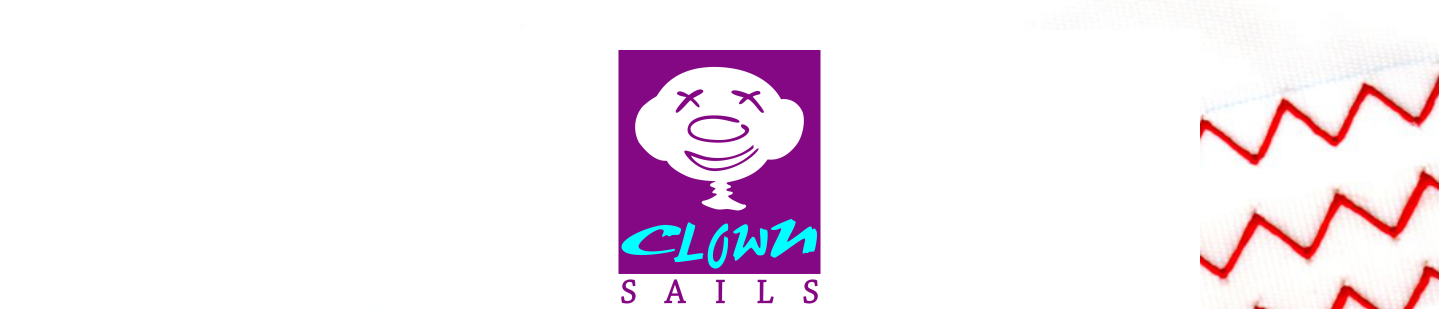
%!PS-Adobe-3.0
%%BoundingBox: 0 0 1439 309
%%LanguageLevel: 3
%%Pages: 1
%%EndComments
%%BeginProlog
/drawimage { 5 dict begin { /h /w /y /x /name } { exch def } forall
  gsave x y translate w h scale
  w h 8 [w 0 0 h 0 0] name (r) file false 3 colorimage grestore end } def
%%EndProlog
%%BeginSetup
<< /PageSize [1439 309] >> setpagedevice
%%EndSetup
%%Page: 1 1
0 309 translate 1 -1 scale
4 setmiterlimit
1 setgray
0 0 1439 309 rectfill
(images/1.raw) 0 0 1439 309 drawimage
394 30 806 279 rectfill
(images/2.raw) 618 50 203 254 drawimage
showpage
%%EOF
